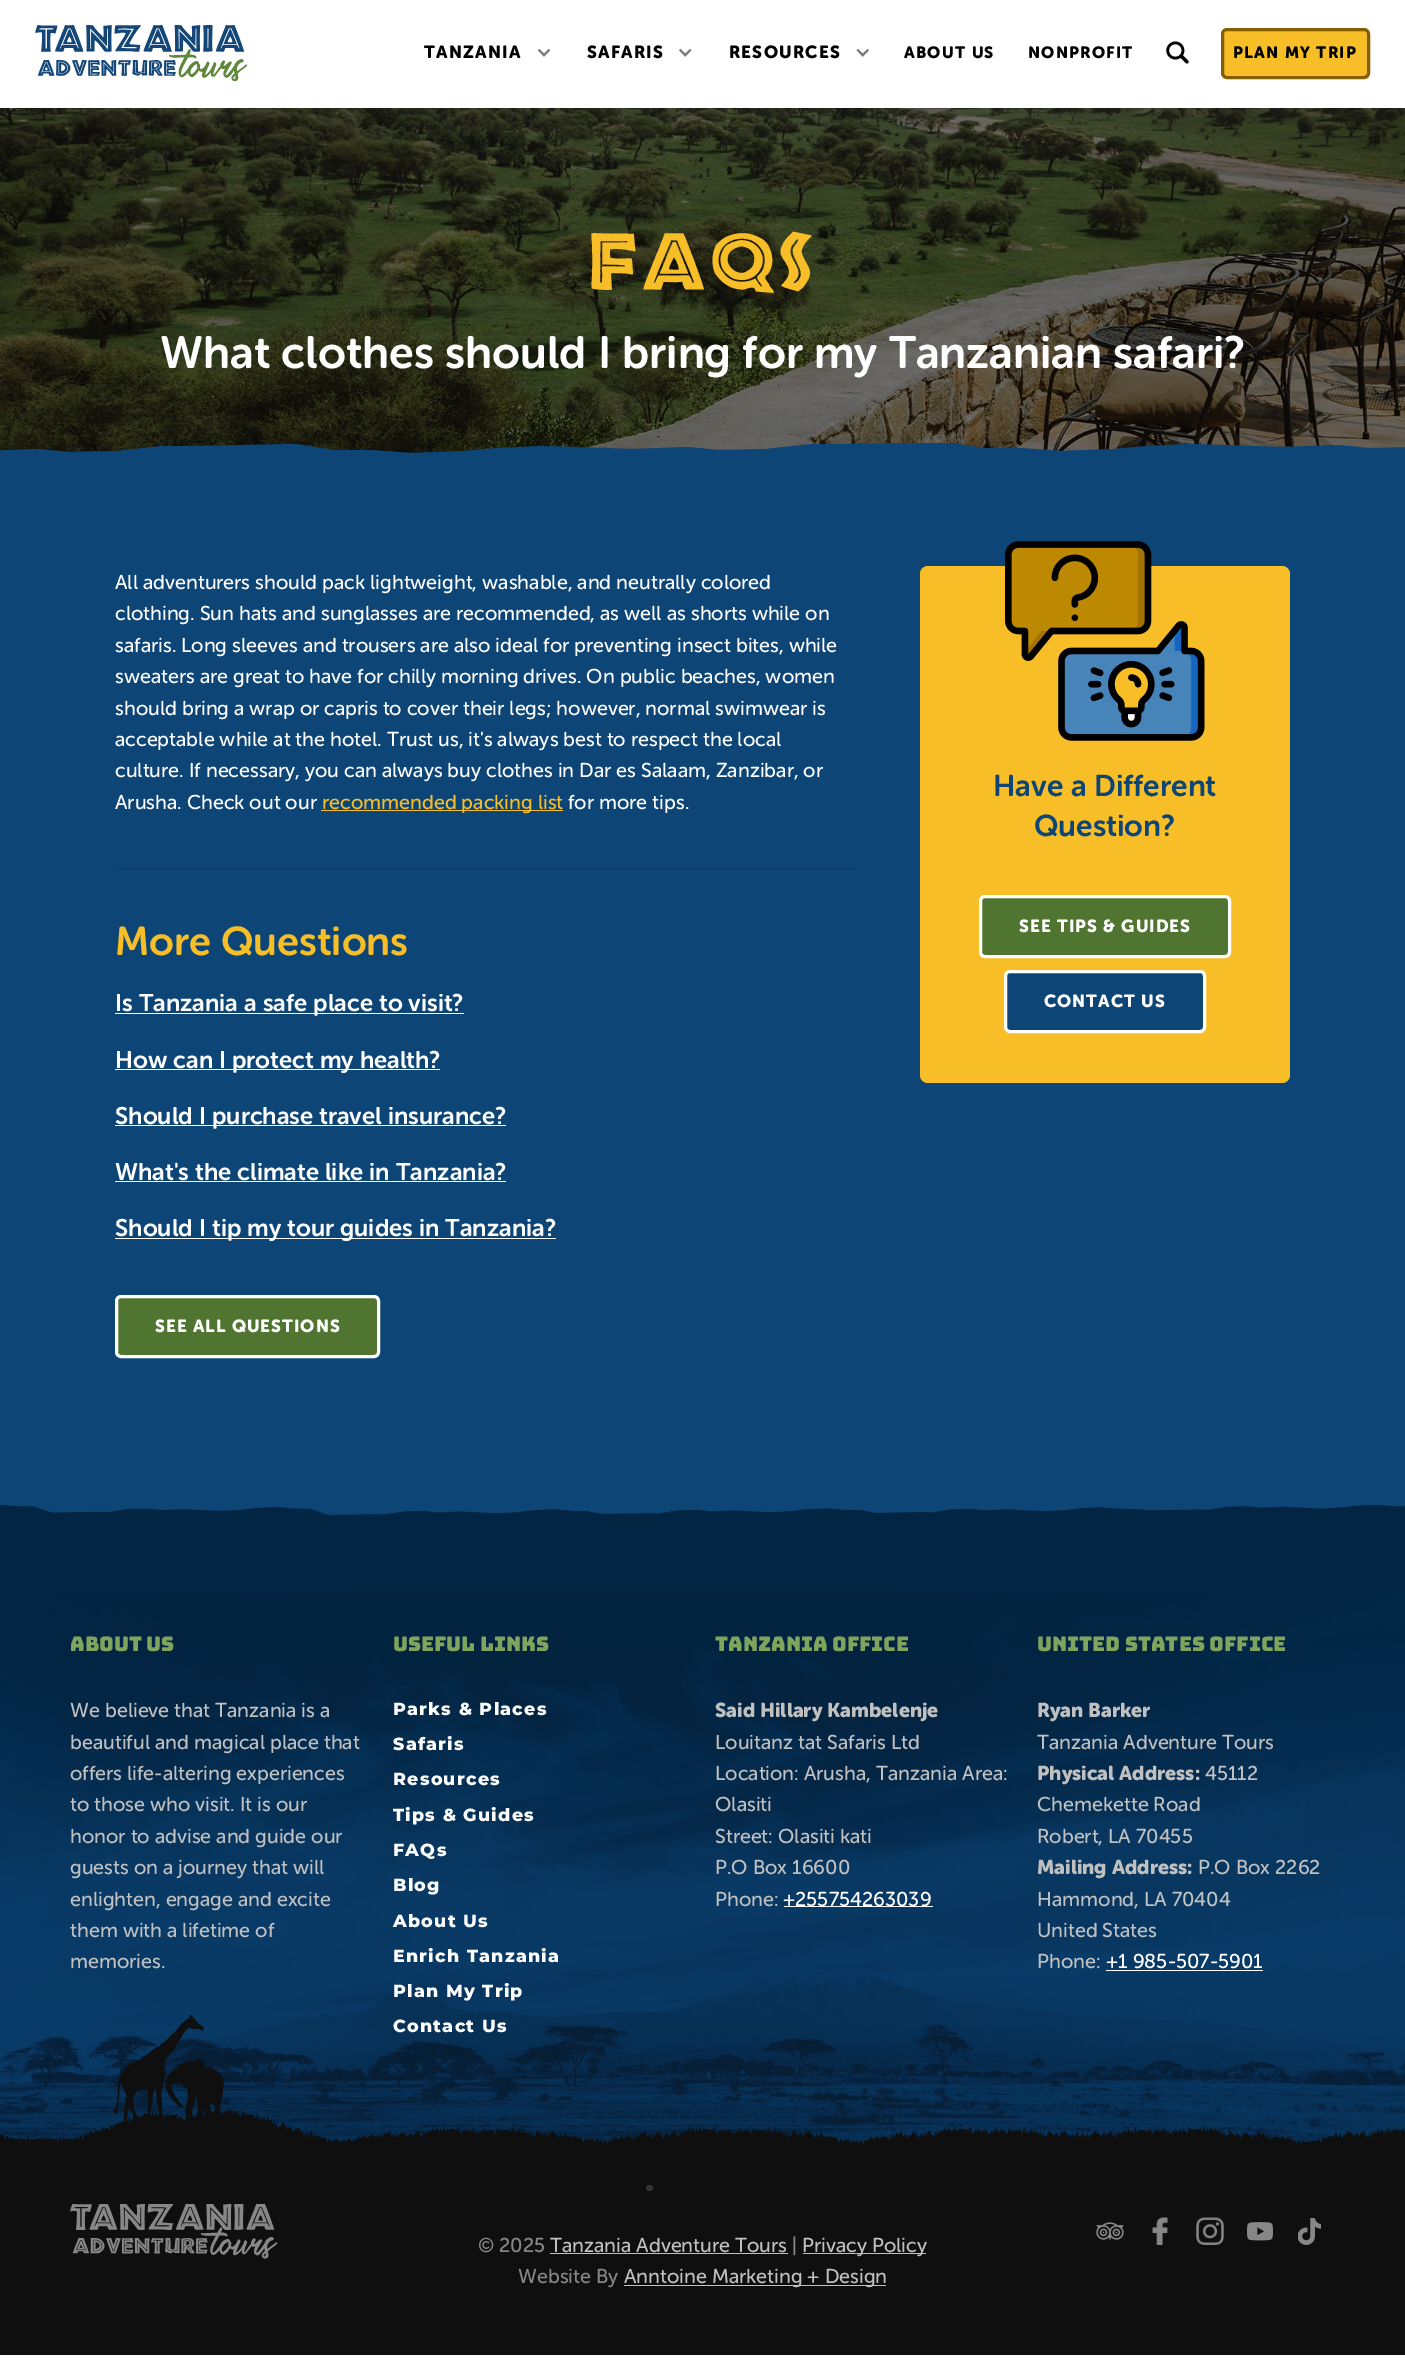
%!PS-Adobe-3.0
%%BoundingBox: 0 0 1405 2367
%%LanguageLevel: 3
%%Pages: 1
%%EndComments
%%BeginProlog
/setalpha { dup .setfillconstantalpha .setstrokeconstantalpha } def
/rrect { 5 dict begin { /r /h /w /y /x } { exch def } forall
  x r add y moveto x w add y 2 copy h add r arct x w add y h add x 1 index r arct
  x y h add x y r arct x y 2 copy exch w add exch r arct closepath end } def
/softshadow { 12 dict begin { /a /b /q /h /w /y /x } { exch def } forall gsave /was 0 def
  9 -2 -9 { dup b mul 4 div /e exch def 1 sub .425 mul 2.718 exch exp 1 add a .99 .min exch div /now exch def
    1 1 now sub 1 was sub div sub setalpha /was now def
    w h .min e 2 mul add 0 gt { x e sub y e sub w e 2 mul add h e 2 mul add
      q e add b .6 mul add w h .min 2 div e add .min 0 .max rrect fill } if } for grestore end } def
/drawimage { 5 dict begin { /h /w /y /x /name } { exch def } forall
  gsave x y translate w h scale
  w h 8 [w 0 0 h 0 0] name (r) file false 3 colorimage grestore end } def
%%EndProlog
%%BeginSetup
<< /PageSize [1405 2367] /PageUsesTransparency true >> setpagedevice
%%EndSetup
%%Page: 1 1
0 .pushpdf14devicefilter
0 2367 translate 1 -1 scale
4 setmiterlimit
1 setgray
0 0 1405 2367 rectfill
(images/6.raw) 0 108 1405 345 drawimage
0 setgray
0 1 1405 108 0 1 0.09 softshadow
1 setgray
0 0 1405 108 rectfill
(images/1.raw) 35 25 213 56 drawimage
(images/2.raw) 537 48 14 9 drawimage
(images/3.raw) 679 48 13 9 drawimage
(images/4.raw) 856 48 13 9 drawimage
(images/5.raw) 1166 41 23 23 drawimage
0.969 0.745 0.153 setrgbcolor
1222.5 29.5 146 48 4.5 rrect gsave fill grestore
0.522 0.369 0 setrgbcolor
3 setlinewidth
stroke
gsave
0 443 1405 12 rectclip
0.051 0.271 0.467 setrgbcolor
newpath 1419 455 moveto 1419 447 lineto 1369 448 lineto 1338 445 lineto 1282 447 lineto 1191 444 lineto 1148 446 lineto 1113 449 lineto 1061 451 lineto 1020 448 lineto 983 448 lineto 946 442 lineto 841 444 lineto 812 444 lineto 766 449 lineto 719 450 lineto 688 447 lineto 632 449 lineto 542 446 lineto 498 448 lineto 463 451 lineto 411 453 lineto 370 450 lineto 333 450 lineto 296 444 lineto 191 446 lineto 162 446 lineto 117 451 lineto 69 452 lineto 38 449 lineto -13 451 lineto -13 455 lineto closepath fill
grestore
0.051 0.271 0.467 setrgbcolor
0 455 1405 1060 rectfill
0.969 0.745 0.153 setrgbcolor
321 810 242 1 rectfill
0.043 0.231 0.4 setrgbcolor
115 868 740 1 rectfill
1 setgray
115 1013 349 1 rectfill
115 1069 325 1 rectfill
115 1125 391 1 rectfill
115 1181 391 1 rectfill
115 1238 441 1 rectfill
0.314 0.459 0.188 setrgbcolor
116.5 1296.5 262 60 4.5 rrect gsave fill grestore
1 setgray
stroke
0.969 0.745 0.153 setrgbcolor
920 566 370 517 8 rrect fill
(images/7.raw) 1005 541 200 200 drawimage
0.314 0.459 0.188 setrgbcolor
980.5 896.5 249 60 4.5 rrect gsave fill grestore
1 setgray
stroke
0.051 0.271 0.467 setrgbcolor
1005.5 971.5 199 60 4.5 rrect gsave fill grestore
1 setgray
stroke
0.004 0.145 0.263 setrgbcolor
0 1520 1405 72 rectfill
(images/8.raw) 0 1505 1405 15 drawimage
(images/9.raw) 0 1592 1405 553 drawimage
1 setgray
784 1906 149 1 rectfill
1106 1970 157 1 rectfill
(images/10.raw) 0 2015 1405 132 drawimage
0.059 setgray
0 2147 1405 208 rectfill
(images/11.raw) 70 2204 208 55 drawimage
(images/12.raw) 1096 2222 28 18 drawimage
(images/13.raw) 1152 2217 16 28 drawimage
(images/14.raw) 1196 2217 28 28 drawimage
(images/15.raw) 1247 2222 26 19 drawimage
(images/16.raw) 1298 2218 23 27 drawimage
0.2 setgray
646 2185 7 6 3 rrect fill
0.753 setgray
550 2253 238 1 rectfill
803 2253 123 1 rectfill
624 2285 262 1 rectfill
/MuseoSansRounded-Bold [17.5 0 0 -17.5 0 0] selectfont
0.008 setgray
424 58 moveto 1.25 0 (TANZANIA) ashow
587 58 moveto 1.25 0 (SAFARIS) ashow
729 58 moveto 1.25 0 (RESOURCES) ashow
/MuseoSansRounded-Bold [16.25 0 0 -16.25 0 0] selectfont
904 58 moveto 1.25 0 (ABOUT US) ashow
1028 58 moveto 1.25 0 (NONPROFIT) ashow
1233 58 moveto 1.25 0 (PLAN MY TRIP) ashow
/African-Regular [75 0 0 -75 0 0] selectfont
0.969 0.745 0.153 setrgbcolor
589 290 moveto 2.5 0 (FAQS) ashow
/MuseoSansRounded-SemiBold [45 0 0 -45 0 0] selectfont
1 setgray
160 368 moveto (What clothes should I bring for my Tanzanian safari?) show
/MuseoSansRounded-Regular [20 0 0 -20 0 0] selectfont
115 589 moveto (All adventurers should pack lightweight, washable, and neutrally colored) show
115 620 moveto (clothing. Sun hats and sunglasses are recommended, as well as shorts while on) show
115 652 moveto (safaris. Long sleeves and trousers are also ideal for preventing insect bites, while) show
115 683 moveto (sweaters are great to have for chilly morning drives. On public beaches, women) show
115 715 moveto (should bring a wrap or capris to cover their legs; however, normal swimwear is) show
115 746 moveto (acceptable while at the hotel. Trust us, it's always best to respect the local) show
115 777 moveto (culture. If necessary, you can always buy clothes in Dar es Salaam, Zanzibar, or) show
115 809 moveto (Arusha. Check out our) show
0.969 0.745 0.153 setrgbcolor
322 809 moveto (recommended packing list) show
1 setgray
568 809 moveto (for more tips.) show
/MuseoSansRounded-SemiBold [40 0 0 -40 0 0] selectfont
0.969 0.745 0.153 setrgbcolor
115 955 moveto (More Questions) show
/MuseoSansRounded-SemiBold [24 0 0 -24 0 0] selectfont
1 setgray
115 1011 moveto (Is Tanzania a safe place to visit?) show
115 1068 moveto (How can I protect my health?) show
115 1124 moveto (Should I purchase travel insurance?) show
115 1180 moveto (What's the climate like in Tanzania?) show
115 1236 moveto (Should I tip my tour guides in Tanzania?) show
/MuseoSansRounded-Bold [17.5 0 0 -17.5 0 0] selectfont
155 1332 moveto 1 0 (SEE ALL QUESTIONS) ashow
/MuseoSansRounded-SemiBold [30 0 0 -30 0 0] selectfont
0.051 0.271 0.467 setrgbcolor
993 796 moveto (Have a Different) show
1034 836 moveto (Question?) show
/MuseoSansRounded-Bold [17.5 0 0 -17.5 0 0] selectfont
1 setgray
1019 932 moveto 1 0 (SEE TIPS & GUIDES) ashow
1044 1007 moveto 1 0 (CONTACT US) ashow
/Bungee-Regular [20 0 0 -20 0 0] selectfont
0.494 0.643 0.365 setrgbcolor
70 1651 moveto (About Us) show
/MuseoSansRounded-Regular [20 0 0 -20 0 0] selectfont
0.753 setgray
70 1717 moveto (We believe that Tanzania is a) show
70 1749 moveto (beautiful and magical place that) show
70 1780 moveto (offers life-altering experiences) show
70 1811 moveto (to those who visit. It is our) show
70 1843 moveto (honor to advise and guide our) show
70 1874 moveto (guests on a journey that will) show
70 1906 moveto (enlighten, engage and excite) show
70 1937 moveto (them with a lifetime of) show
70 1968 moveto (memories.) show
/Bungee-Regular [20 0 0 -20 0 0] selectfont
0.494 0.643 0.365 setrgbcolor
393 1651 moveto (Useful Links) show
/Montserrat-ExtraBold [17.5 0 0 -17.5 0 0] selectfont
1 setgray
393 1715 moveto 1.25 0 (Parks & Places) ashow
393 1750 moveto 1.25 0 (Safaris) ashow
393 1785 moveto 1.25 0 (Resources) ashow
393 1821 moveto 1.25 0 (Tips & Guides) ashow
393 1856 moveto 1.25 0 (FAQs) ashow
393 1891 moveto 1.25 0 (Blog) ashow
393 1927 moveto 1.25 0 (About Us) ashow
393 1962 moveto 1.25 0 (Enrich Tanzania) ashow
393 1997 moveto 1.25 0 (Plan My Trip) ashow
393 2032 moveto 1.25 0 (Contact Us) ashow
/Bungee-Regular [20 0 0 -20 0 0] selectfont
0.494 0.643 0.365 setrgbcolor
715 1651 moveto (Tanzania Office) show
/MuseoSansRounded-Bold [20 0 0 -20 0 0] selectfont
0.753 setgray
715 1717 moveto (Said Hillary Kambelenje) show
/MuseoSansRounded-Regular [20 0 0 -20 0 0] selectfont
715 1749 moveto (Louitanz tat Safaris Ltd) show
715 1780 moveto (Location: Arusha, Tanzania Area:) show
715 1811 moveto (Olasiti) show
715 1843 moveto (Street: Olasiti kati) show
715 1874 moveto (P.O Box 16600) show
715 1906 moveto (Phone:) show
1 setgray
783 1906 moveto (+255754263039) show
/Bungee-Regular [20 0 0 -20 0 0] selectfont
0.494 0.643 0.365 setrgbcolor
1037 1651 moveto (United States Office) show
/MuseoSansRounded-Bold [20 0 0 -20 0 0] selectfont
0.753 setgray
1037 1717 moveto (Ryan Barker) show
/MuseoSansRounded-Regular [20 0 0 -20 0 0] selectfont
1037 1749 moveto (Tanzania Adventure Tours) show
/MuseoSansRounded-Bold [20 0 0 -20 0 0] selectfont
1037 1780 moveto (Physical Address:) show
/MuseoSansRounded-Regular [20 0 0 -20 0 0] selectfont
1205 1780 moveto (45112) show
1037 1811 moveto (Chemekette Road) show
1037 1843 moveto (Robert, LA 70455) show
/MuseoSansRounded-Bold [20 0 0 -20 0 0] selectfont
1037 1874 moveto (Mailing Address:) show
/MuseoSansRounded-Regular [20 0 0 -20 0 0] selectfont
1198 1874 moveto (P.O Box 2262) show
1037 1906 moveto (Hammond, LA 70404) show
1037 1937 moveto (United States) show
1037 1968 moveto (Phone:) show
1 setgray
1106 1968 moveto (+1 985-507-5901) show
0.529 setgray
478 2252 moveto (© 2025) show
0.753 setgray
550 2252 moveto (Tanzania Adventure Tours) show
0.529 setgray
792 2252 moveto (|) show
0.753 setgray
802 2252 moveto (Privacy Policy) show
0.529 setgray
518 2283 moveto (Website By) show
0.753 setgray
624 2283 moveto (Anntoine Marketing + Design) show
.poppdf14devicefilter showpage
%%EOF
